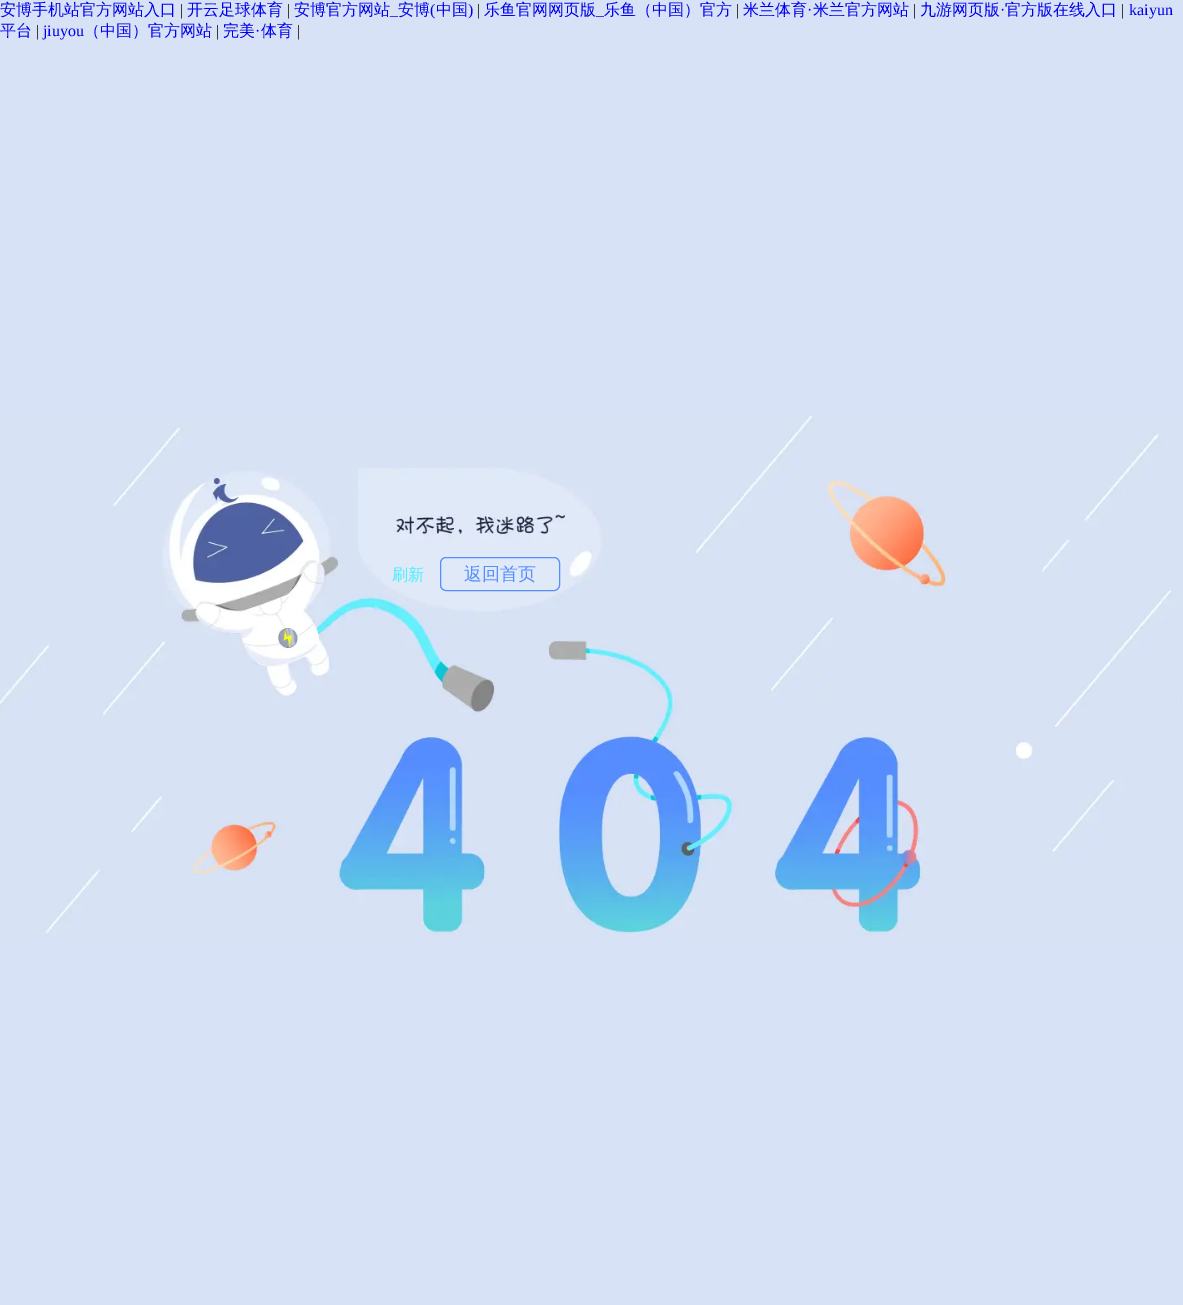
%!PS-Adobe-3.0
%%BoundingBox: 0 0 1183 1305
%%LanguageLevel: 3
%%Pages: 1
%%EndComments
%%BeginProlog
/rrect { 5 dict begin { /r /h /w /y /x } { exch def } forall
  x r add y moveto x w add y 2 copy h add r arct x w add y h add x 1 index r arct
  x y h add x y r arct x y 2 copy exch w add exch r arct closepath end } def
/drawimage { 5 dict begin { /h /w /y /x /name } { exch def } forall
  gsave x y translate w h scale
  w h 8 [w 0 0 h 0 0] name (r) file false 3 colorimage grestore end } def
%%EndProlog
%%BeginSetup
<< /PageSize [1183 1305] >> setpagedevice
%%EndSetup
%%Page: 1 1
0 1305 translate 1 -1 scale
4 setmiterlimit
0.843 0.886 0.965 setrgbcolor
0 0 1183 1305 rectfill
(images/1.raw) 0 414 1183 524 drawimage
0.337 0.553 1 setrgbcolor
440.5 557.5 119 33 5.5 rrect stroke
/WenQuanYiZenHei-Medium [16 0 0 -16 0 0] selectfont
0 0 0.933 setrgbcolor
0 15 moveto (安博手机站官方网站入口) show
/LiberationSerif-Regular [16 0 0 -16 0 0] selectfont
0 setgray
180 15 moveto (|) show
/WenQuanYiZenHei-Medium [16 0 0 -16 0 0] selectfont
0 0 0.933 setrgbcolor
187 15 moveto (开云足球体育) show
/LiberationSerif-Regular [16 0 0 -16 0 0] selectfont
0 setgray
287 15 moveto (|) show
/WenQuanYiZenHei-Medium [16 0 0 -16 0 0] selectfont
0 0 0.933 setrgbcolor
294 15 moveto (安博官方网站) show
398 15 moveto (安博) show
/LiberationSerif-Regular [16 0 0 -16 0 0] selectfont
430 15 moveto (\() show
/WenQuanYiZenHei-Medium [16 0 0 -16 0 0] selectfont
436 15 moveto (中国) show
/LiberationSerif-Regular [16 0 0 -16 0 0] selectfont
468 15 moveto (\)) show
0 setgray
477 15 moveto (|) show
/WenQuanYiZenHei-Medium [16 0 0 -16 0 0] selectfont
0 0 0.933 setrgbcolor
484 15 moveto (乐鱼官网网页版) show
/LiberationSerif-Regular [16 0 0 -16 0 0] selectfont
0 setgray
736 15 moveto (|) show
/WenQuanYiZenHei-Medium [16 0 0 -16 0 0] selectfont
0 0 0.933 setrgbcolor
743 15 moveto (米兰体育) show
/LiberationSerif-Regular [16 0 0 -16 0 0] selectfont
807 15 moveto (·) show
/WenQuanYiZenHei-Medium [16 0 0 -16 0 0] selectfont
813 15 moveto (米兰官方网站) show
/LiberationSerif-Regular [16 0 0 -16 0 0] selectfont
0 setgray
913 15 moveto (|) show
/WenQuanYiZenHei-Medium [16 0 0 -16 0 0] selectfont
0 0 0.933 setrgbcolor
920 15 moveto (九游网页版) show
/LiberationSerif-Regular [16 0 0 -16 0 0] selectfont
1000 15 moveto (·) show
/WenQuanYiZenHei-Medium [16 0 0 -16 0 0] selectfont
1005 15 moveto (官方版在线入口) show
/LiberationSerif-Regular [16 0 0 -16 0 0] selectfont
0 setgray
1121 15 moveto (|) show
0 0 0.933 setrgbcolor
1129 15 moveto (kaiyun) show
390 15 moveto (_) show
596 15 moveto (_) show
/WenQuanYiZenHei-Medium [16 0 0 -16 0 0] selectfont
604 15 moveto (乐鱼（中国）官方) show
0 36 moveto (平台) show
/LiberationSerif-Regular [16 0 0 -16 0 0] selectfont
0 setgray
36 36 moveto (|) show
0 0 0.933 setrgbcolor
43 36 moveto (jiuyou) show
/WenQuanYiZenHei-Medium [16 0 0 -16 0 0] selectfont
84 36 moveto (（中国）官方网站) show
/LiberationSerif-Regular [16 0 0 -16 0 0] selectfont
0 setgray
216 36 moveto (|) show
/WenQuanYiZenHei-Medium [16 0 0 -16 0 0] selectfont
0 0 0.933 setrgbcolor
223 36 moveto (完美) show
/LiberationSerif-Regular [16 0 0 -16 0 0] selectfont
255 36 moveto (·) show
/WenQuanYiZenHei-Medium [16 0 0 -16 0 0] selectfont
261 36 moveto (体育) show
/LiberationSerif-Regular [16 0 0 -16 0 0] selectfont
0 setgray
297 36 moveto (|) show
/WenQuanYiZenHei-Medium [16 0 0 -16 0 0] selectfont
0.278 0.937 0.988 setrgbcolor
392 580 moveto (刷新) show
/WenQuanYiZenHei-Medium [18 0 0 -18 0 0] selectfont
0.337 0.553 1 setrgbcolor
464 580 moveto (返回首页) show
showpage
%%EOF
